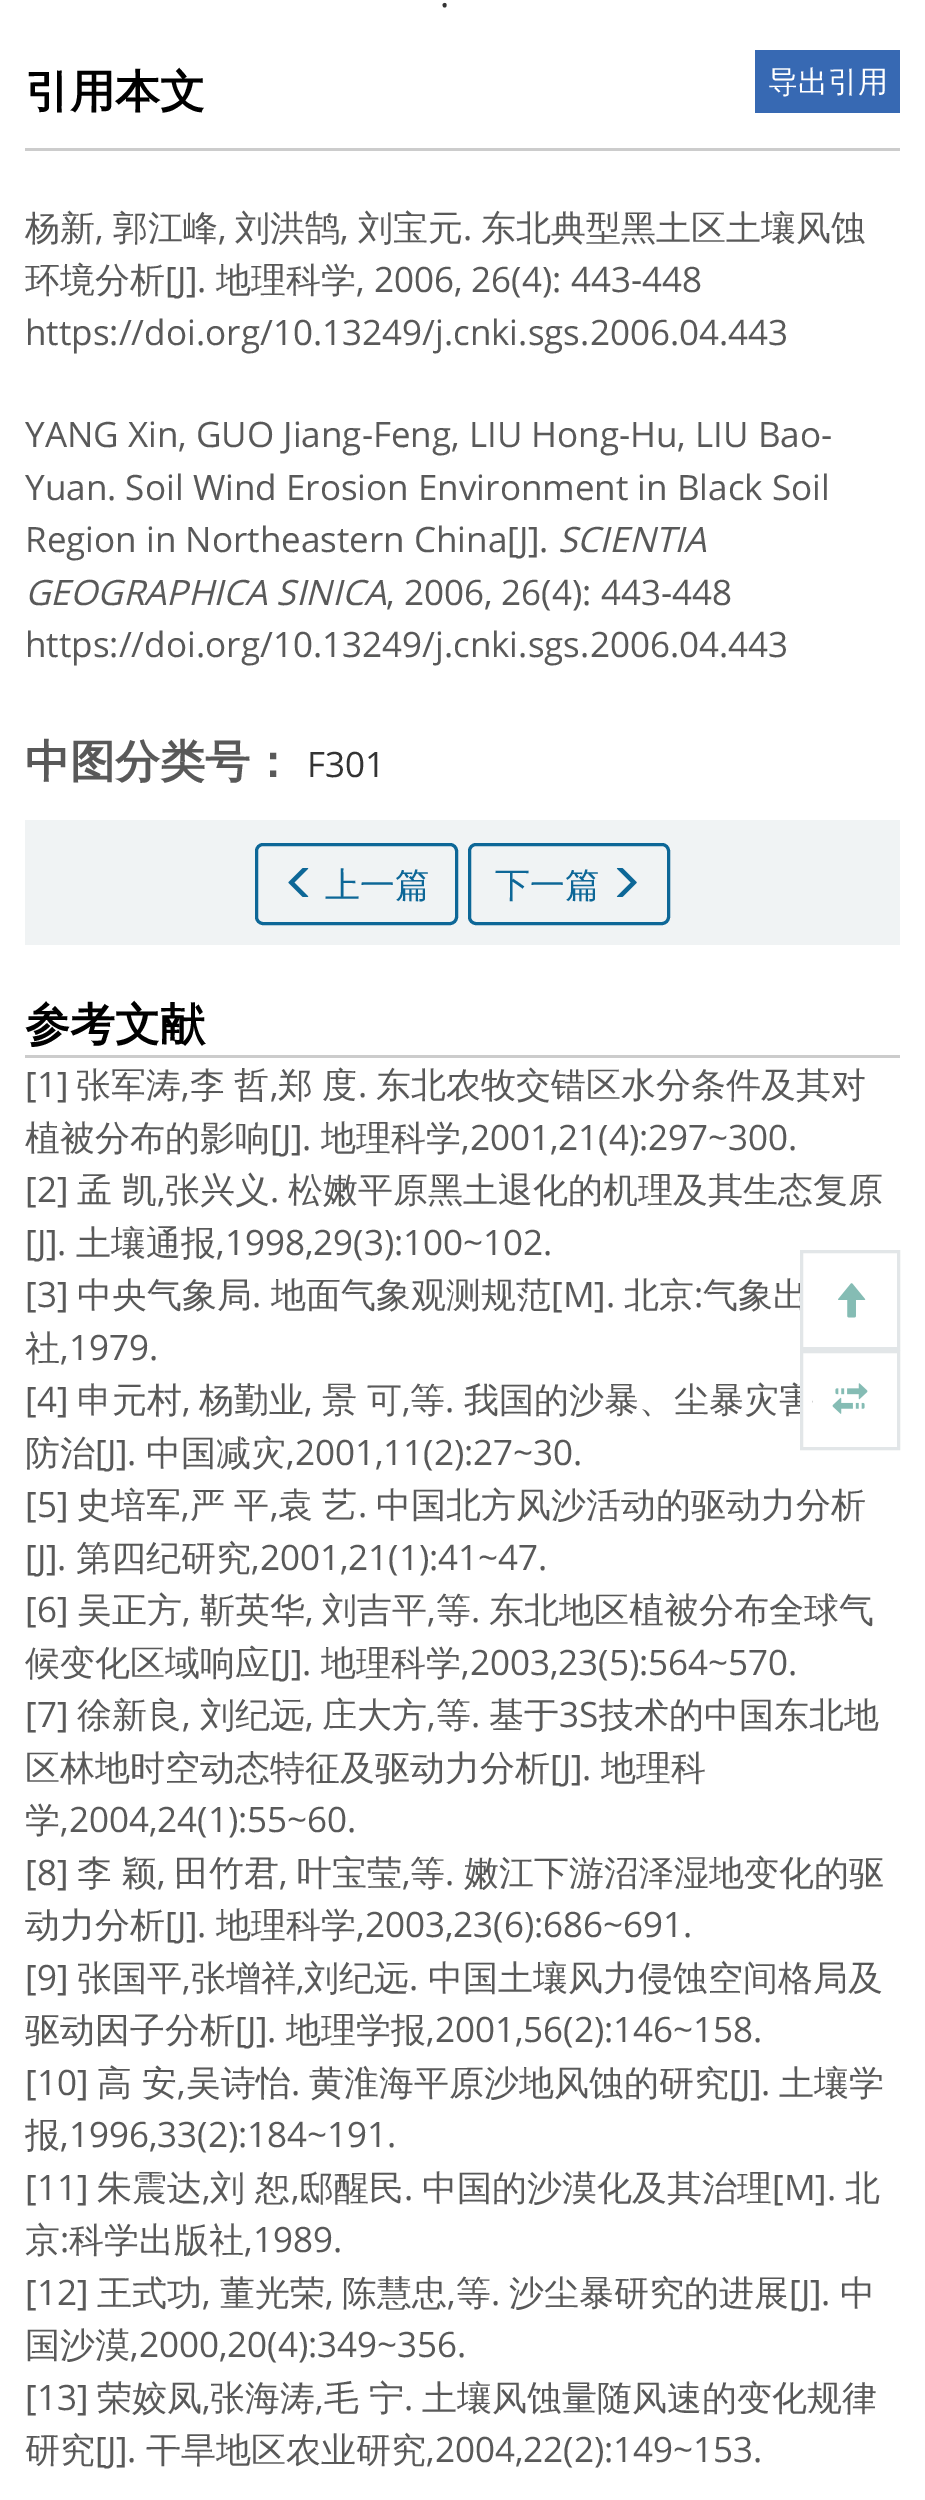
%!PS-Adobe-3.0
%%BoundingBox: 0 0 925 2500
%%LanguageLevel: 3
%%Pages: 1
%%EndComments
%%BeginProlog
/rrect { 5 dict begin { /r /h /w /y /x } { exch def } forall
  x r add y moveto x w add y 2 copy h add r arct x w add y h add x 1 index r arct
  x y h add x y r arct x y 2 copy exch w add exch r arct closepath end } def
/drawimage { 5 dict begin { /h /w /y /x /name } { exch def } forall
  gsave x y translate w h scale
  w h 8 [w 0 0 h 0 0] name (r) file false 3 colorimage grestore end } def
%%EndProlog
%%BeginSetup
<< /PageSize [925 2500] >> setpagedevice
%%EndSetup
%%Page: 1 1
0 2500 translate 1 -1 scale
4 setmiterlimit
1 setgray
0 0 925 2500 rectfill
0.8 setgray
25 148 875 3 rectfill
0.216 0.412 0.702 setrgbcolor
755 50 145 63 rectfill
0.941 0.953 0.957 setrgbcolor
25 820 875 125 rectfill
0.051 0.404 0.592 setrgbcolor
3 setlinewidth
256.5 844.5 200 79 6.5 rrect stroke
(images/1.raw) 288 868 21 29 drawimage
469.5 844.5 199 79 6.5 rrect stroke
(images/2.raw) 616 868 21 29 drawimage
0.8 setgray
25 1055 875 3 rectfill
/OpenSans-Regular [35 0 0 -35 0 0] selectfont
0.2 setgray
440 7 moveto (.) show
/WenQuanYiZenHei-Bold [45 0 0 -45 0 0] selectfont
0 setgray
25 107 moveto (引用本文) show
/WenQuanYiZenHei-Medium [30 0 0 -30 0 0] selectfont
1 setgray
768 92 moveto (导出引用) show
/WenQuanYiZenHei-Medium [35 0 0 -35 0 0] selectfont
0.349 setgray
25 240 moveto (杨新) show
/OpenSans-Regular [35 0 0 -35 0 0] selectfont
95 240 moveto (,) show
/WenQuanYiZenHei-Medium [35 0 0 -35 0 0] selectfont
113 240 moveto (郭江峰) show
/OpenSans-Regular [35 0 0 -35 0 0] selectfont
218 240 moveto (,) show
/WenQuanYiZenHei-Medium [35 0 0 -35 0 0] selectfont
235 240 moveto (刘洪鹄) show
/OpenSans-Regular [35 0 0 -35 0 0] selectfont
340 240 moveto (,) show
/WenQuanYiZenHei-Medium [35 0 0 -35 0 0] selectfont
358 240 moveto (刘宝元) show
/OpenSans-Regular [35 0 0 -35 0 0] selectfont
463 240 moveto (.) show
/WenQuanYiZenHei-Medium [35 0 0 -35 0 0] selectfont
481 240 moveto (东北典型黑土区土壤风蚀) show
25 292 moveto (环境分析) show
/OpenSans-Regular [35 0 0 -35 0 0] selectfont
165 292 moveto ([J].) show
/WenQuanYiZenHei-Medium [35 0 0 -35 0 0] selectfont
216 292 moveto (地理科学) show
/OpenSans-Regular [35 0 0 -35 0 0] selectfont
356 292 moveto (, 2006, 26\(4\): 443-448) show
25 345 moveto (https://doi.org/10.13249/j.cnki.sgs.2006.04.443) show
25 447 moveto (YANG Xin, GUO Jiang-Feng, LIU Hong-Hu, LIU Bao-) show
25 500 moveto (Yuan. Soil Wind Erosion Environment in Black Soil) show
25 552 moveto (Region in Northeastern China[J].) show
/OpenSans-Italic [35 0 0 -35 0 0] selectfont
558 552 moveto (SCIENTIA) show
25 605 moveto (GEOGRAPHICA SINICA) show
/OpenSans-Regular [35 0 0 -35 0 0] selectfont
386 605 moveto (, 2006, 26\(4\): 443-448) show
25 657 moveto (https://doi.org/10.13249/j.cnki.sgs.2006.04.443) show
/WenQuanYiZenHei-Bold [45 0 0 -45 0 0] selectfont
25 777 moveto (中图分类号：) show
/OpenSans-Regular [35 0 0 -35 0 0] selectfont
0.2 setgray
307 777 moveto (F301) show
/WenQuanYiZenHei-Medium [35 0 0 -35 0 0] selectfont
0.051 0.404 0.592 setrgbcolor
325 897 moveto (上一篇) show
495 897 moveto (下一篇) show
/WenQuanYiZenHei-Bold [45 0 0 -45 0 0] selectfont
0 setgray
25 1040 moveto (参考文献) show
/OpenSans-Regular [35 0 0 -35 0 0] selectfont
0.349 setgray
25 1097 moveto ([1]) show
/WenQuanYiZenHei-Medium [35 0 0 -35 0 0] selectfont
76 1097 moveto (张军涛) show
/OpenSans-Regular [35 0 0 -35 0 0] selectfont
181 1097 moveto (,) show
/WenQuanYiZenHei-Medium [35 0 0 -35 0 0] selectfont
190 1097 moveto -1 0 32 (李 哲) widthshow
/OpenSans-Regular [35 0 0 -35 0 0] selectfont
270 1097 moveto (,) show
/WenQuanYiZenHei-Medium [35 0 0 -35 0 0] selectfont
278 1097 moveto -1 0 32 (郑 度) widthshow
/OpenSans-Regular [35 0 0 -35 0 0] selectfont
358 1097 moveto (.) show
/WenQuanYiZenHei-Medium [35 0 0 -35 0 0] selectfont
376 1097 moveto (东北农牧交错区水分条件及其对) show
25 1150 moveto (植被分布的影响) show
/OpenSans-Regular [35 0 0 -35 0 0] selectfont
270 1150 moveto ([J].) show
/WenQuanYiZenHei-Medium [35 0 0 -35 0 0] selectfont
321 1150 moveto (地理科学) show
/OpenSans-Regular [35 0 0 -35 0 0] selectfont
461 1150 moveto (,2001,21\(4\):297~300.) show
25 1202 moveto ([2]) show
/WenQuanYiZenHei-Medium [35 0 0 -35 0 0] selectfont
77 1202 moveto (孟 凯) show
/OpenSans-Regular [35 0 0 -35 0 0] selectfont
157 1202 moveto (,) show
/WenQuanYiZenHei-Medium [35 0 0 -35 0 0] selectfont
165 1202 moveto (张兴义) show
/OpenSans-Regular [35 0 0 -35 0 0] selectfont
270 1202 moveto (.) show
/WenQuanYiZenHei-Medium [35 0 0 -35 0 0] selectfont
288 1202 moveto (松嫩平原黑土退化的机理及其生态复原) show
/OpenSans-Regular [35 0 0 -35 0 0] selectfont
25 1255 moveto ([J].) show
/WenQuanYiZenHei-Medium [35 0 0 -35 0 0] selectfont
76 1255 moveto (土壤通报) show
/OpenSans-Regular [35 0 0 -35 0 0] selectfont
216 1255 moveto (,1998,29\(3\):100~102.) show
25 1307 moveto ([3]) show
/WenQuanYiZenHei-Medium [35 0 0 -35 0 0] selectfont
77 1307 moveto (中央气象局) show
/OpenSans-Regular [35 0 0 -35 0 0] selectfont
252 1307 moveto (.) show
/WenQuanYiZenHei-Medium [35 0 0 -35 0 0] selectfont
271 1307 moveto (地面气象观测规范) show
/OpenSans-Regular [35 0 0 -35 0 0] selectfont
551 1307 moveto ([M].) show
/WenQuanYiZenHei-Medium [35 0 0 -35 0 0] selectfont
624 1307 moveto (北京) show
/OpenSans-Regular [35 0 0 -35 0 0] selectfont
694 1307 moveto (:) show
/WenQuanYiZenHei-Medium [35 0 0 -35 0 0] selectfont
703 1307 moveto (气象出) show
25 1360 moveto (社) show
/OpenSans-Regular [35 0 0 -35 0 0] selectfont
60 1360 moveto (,1979.) show
25 1412 moveto ([4]) show
/WenQuanYiZenHei-Medium [35 0 0 -35 0 0] selectfont
77 1412 moveto (申元村) show
/OpenSans-Regular [35 0 0 -35 0 0] selectfont
182 1412 moveto (,) show
/WenQuanYiZenHei-Medium [35 0 0 -35 0 0] selectfont
199 1412 moveto (杨勤业) show
/OpenSans-Regular [35 0 0 -35 0 0] selectfont
304 1412 moveto (,) show
/WenQuanYiZenHei-Medium [35 0 0 -35 0 0] selectfont
322 1412 moveto (景 可) show
/OpenSans-Regular [35 0 0 -35 0 0] selectfont
402 1412 moveto (,) show
/WenQuanYiZenHei-Medium [35 0 0 -35 0 0] selectfont
410 1412 moveto (等) show
/OpenSans-Regular [35 0 0 -35 0 0] selectfont
445 1412 moveto (.) show
/WenQuanYiZenHei-Medium [35 0 0 -35 0 0] selectfont
464 1412 moveto (我国的沙暴、尘暴灾害) show
25 1465 moveto (防治) show
/OpenSans-Regular [35 0 0 -35 0 0] selectfont
95 1465 moveto ([J].) show
/WenQuanYiZenHei-Medium [35 0 0 -35 0 0] selectfont
146 1465 moveto (中国减灾) show
/OpenSans-Regular [35 0 0 -35 0 0] selectfont
286 1465 moveto (,2001,11\(2\):27~30.) show
25 1517 moveto ([5]) show
/WenQuanYiZenHei-Medium [35 0 0 -35 0 0] selectfont
76 1517 moveto (史培军) show
/OpenSans-Regular [35 0 0 -35 0 0] selectfont
181 1517 moveto (,) show
/WenQuanYiZenHei-Medium [35 0 0 -35 0 0] selectfont
190 1517 moveto -1 0 32 (严 平) widthshow
/OpenSans-Regular [35 0 0 -35 0 0] selectfont
270 1517 moveto (,) show
/WenQuanYiZenHei-Medium [35 0 0 -35 0 0] selectfont
278 1517 moveto -1 0 32 (袁 艺) widthshow
/OpenSans-Regular [35 0 0 -35 0 0] selectfont
358 1517 moveto (.) show
/WenQuanYiZenHei-Medium [35 0 0 -35 0 0] selectfont
376 1517 moveto (中国北方风沙活动的驱动力分析) show
/OpenSans-Regular [35 0 0 -35 0 0] selectfont
25 1570 moveto ([J].) show
/WenQuanYiZenHei-Medium [35 0 0 -35 0 0] selectfont
76 1570 moveto (第四纪研究) show
/OpenSans-Regular [35 0 0 -35 0 0] selectfont
251 1570 moveto (,2001,21\(1\):41~47.) show
25 1622 moveto ([6]) show
/WenQuanYiZenHei-Medium [35 0 0 -35 0 0] selectfont
77 1622 moveto (吴正方) show
/OpenSans-Regular [35 0 0 -35 0 0] selectfont
182 1622 moveto (,) show
/WenQuanYiZenHei-Medium [35 0 0 -35 0 0] selectfont
200 1622 moveto (靳英华) show
/OpenSans-Regular [35 0 0 -35 0 0] selectfont
305 1622 moveto (,) show
/WenQuanYiZenHei-Medium [35 0 0 -35 0 0] selectfont
322 1622 moveto (刘吉平) show
/OpenSans-Regular [35 0 0 -35 0 0] selectfont
427 1622 moveto (,) show
/WenQuanYiZenHei-Medium [35 0 0 -35 0 0] selectfont
436 1622 moveto (等) show
/OpenSans-Regular [35 0 0 -35 0 0] selectfont
471 1622 moveto (.) show
/WenQuanYiZenHei-Medium [35 0 0 -35 0 0] selectfont
489 1622 moveto (东北地区植被分布全球气) show
25 1675 moveto (候变化区域响应) show
/OpenSans-Regular [35 0 0 -35 0 0] selectfont
270 1675 moveto ([J].) show
/WenQuanYiZenHei-Medium [35 0 0 -35 0 0] selectfont
321 1675 moveto (地理科学) show
/OpenSans-Regular [35 0 0 -35 0 0] selectfont
461 1675 moveto (,2003,23\(5\):564~570.) show
25 1727 moveto ([7]) show
/WenQuanYiZenHei-Medium [35 0 0 -35 0 0] selectfont
77 1727 moveto (徐新良) show
/OpenSans-Regular [35 0 0 -35 0 0] selectfont
182 1727 moveto (,) show
/WenQuanYiZenHei-Medium [35 0 0 -35 0 0] selectfont
200 1727 moveto (刘纪远) show
/OpenSans-Regular [35 0 0 -35 0 0] selectfont
305 1727 moveto (,) show
/WenQuanYiZenHei-Medium [35 0 0 -35 0 0] selectfont
322 1727 moveto (庄大方) show
/OpenSans-Regular [35 0 0 -35 0 0] selectfont
427 1727 moveto (,) show
/WenQuanYiZenHei-Medium [35 0 0 -35 0 0] selectfont
436 1727 moveto (等) show
/OpenSans-Regular [35 0 0 -35 0 0] selectfont
471 1727 moveto (.) show
/WenQuanYiZenHei-Medium [35 0 0 -35 0 0] selectfont
489 1727 moveto (基于) show
/OpenSans-Regular [35 0 0 -35 0 0] selectfont
559 1727 moveto (3S) show
/WenQuanYiZenHei-Medium [35 0 0 -35 0 0] selectfont
599 1727 moveto (技术的中国东北地) show
25 1780 moveto (区林地时空动态特征及驱动力分析) show
/OpenSans-Regular [35 0 0 -35 0 0] selectfont
550 1780 moveto ([J].) show
/WenQuanYiZenHei-Medium [35 0 0 -35 0 0] selectfont
601 1780 moveto (地理科) show
25 1832 moveto (学) show
/OpenSans-Regular [35 0 0 -35 0 0] selectfont
60 1832 moveto (,2004,24\(1\):55~60.) show
25 1885 moveto ([8]) show
/WenQuanYiZenHei-Medium [35 0 0 -35 0 0] selectfont
77 1885 moveto (李 颖) show
/OpenSans-Regular [35 0 0 -35 0 0] selectfont
157 1885 moveto (,) show
/WenQuanYiZenHei-Medium [35 0 0 -35 0 0] selectfont
174 1885 moveto (田竹君) show
/OpenSans-Regular [35 0 0 -35 0 0] selectfont
279 1885 moveto (,) show
/WenQuanYiZenHei-Medium [35 0 0 -35 0 0] selectfont
297 1885 moveto (叶宝莹) show
/OpenSans-Regular [35 0 0 -35 0 0] selectfont
402 1885 moveto (,) show
/WenQuanYiZenHei-Medium [35 0 0 -35 0 0] selectfont
410 1885 moveto (等) show
/OpenSans-Regular [35 0 0 -35 0 0] selectfont
445 1885 moveto (.) show
/WenQuanYiZenHei-Medium [35 0 0 -35 0 0] selectfont
464 1885 moveto (嫩江下游沼泽湿地变化的驱) show
25 1937 moveto (动力分析) show
/OpenSans-Regular [35 0 0 -35 0 0] selectfont
165 1937 moveto ([J].) show
/WenQuanYiZenHei-Medium [35 0 0 -35 0 0] selectfont
216 1937 moveto (地理科学) show
/OpenSans-Regular [35 0 0 -35 0 0] selectfont
356 1937 moveto (,2003,23\(6\):686~691.) show
25 1990 moveto ([9]) show
/WenQuanYiZenHei-Medium [35 0 0 -35 0 0] selectfont
77 1990 moveto (张国平) show
/OpenSans-Regular [35 0 0 -35 0 0] selectfont
182 1990 moveto (,) show
/WenQuanYiZenHei-Medium [35 0 0 -35 0 0] selectfont
191 1990 moveto (张增祥) show
/OpenSans-Regular [35 0 0 -35 0 0] selectfont
296 1990 moveto (,) show
/WenQuanYiZenHei-Medium [35 0 0 -35 0 0] selectfont
304 1990 moveto (刘纪远) show
/OpenSans-Regular [35 0 0 -35 0 0] selectfont
409 1990 moveto (.) show
/WenQuanYiZenHei-Medium [35 0 0 -35 0 0] selectfont
428 1990 moveto (中国土壤风力侵蚀空间格局及) show
25 2042 moveto (驱动因子分析) show
/OpenSans-Regular [35 0 0 -35 0 0] selectfont
235 2042 moveto ([J].) show
/WenQuanYiZenHei-Medium [35 0 0 -35 0 0] selectfont
286 2042 moveto (地理学报) show
/OpenSans-Regular [35 0 0 -35 0 0] selectfont
426 2042 moveto (,2001,56\(2\):146~158.) show
25 2095 moveto ([10]) show
/WenQuanYiZenHei-Medium [35 0 0 -35 0 0] selectfont
97 2095 moveto (高 安) show
/OpenSans-Regular [35 0 0 -35 0 0] selectfont
177 2095 moveto (,) show
/WenQuanYiZenHei-Medium [35 0 0 -35 0 0] selectfont
186 2095 moveto (吴诗怡) show
/OpenSans-Regular [35 0 0 -35 0 0] selectfont
291 2095 moveto (.) show
/WenQuanYiZenHei-Medium [35 0 0 -35 0 0] selectfont
309 2095 moveto (黄淮海平原沙地风蚀的研究) show
/OpenSans-Regular [35 0 0 -35 0 0] selectfont
729 2095 moveto ([J].) show
/WenQuanYiZenHei-Medium [35 0 0 -35 0 0] selectfont
779 2095 moveto (土壤学) show
25 2147 moveto (报) show
/OpenSans-Regular [35 0 0 -35 0 0] selectfont
60 2147 moveto (,1996,33\(2\):184~191.) show
25 2200 moveto ([11]) show
/WenQuanYiZenHei-Medium [35 0 0 -35 0 0] selectfont
97 2200 moveto (朱震达) show
/OpenSans-Regular [35 0 0 -35 0 0] selectfont
202 2200 moveto (,) show
/WenQuanYiZenHei-Medium [35 0 0 -35 0 0] selectfont
210 2200 moveto (刘 恕) show
/OpenSans-Regular [35 0 0 -35 0 0] selectfont
291 2200 moveto (,) show
/WenQuanYiZenHei-Medium [35 0 0 -35 0 0] selectfont
299 2200 moveto (邸醒民) show
/OpenSans-Regular [35 0 0 -35 0 0] selectfont
404 2200 moveto (.) show
/WenQuanYiZenHei-Medium [35 0 0 -35 0 0] selectfont
422 2200 moveto (中国的沙漠化及其治理) show
/OpenSans-Regular [35 0 0 -35 0 0] selectfont
772 2200 moveto ([M].) show
/WenQuanYiZenHei-Medium [35 0 0 -35 0 0] selectfont
845 2200 moveto (北) show
25 2252 moveto (京) show
/OpenSans-Regular [35 0 0 -35 0 0] selectfont
60 2252 moveto (:) show
/WenQuanYiZenHei-Medium [35 0 0 -35 0 0] selectfont
69 2252 moveto (科学出版社) show
/OpenSans-Regular [35 0 0 -35 0 0] selectfont
244 2252 moveto (,1989.) show
25 2305 moveto ([12]) show
/WenQuanYiZenHei-Medium [35 0 0 -35 0 0] selectfont
97 2305 moveto (王式功) show
/OpenSans-Regular [35 0 0 -35 0 0] selectfont
202 2305 moveto (,) show
/WenQuanYiZenHei-Medium [35 0 0 -35 0 0] selectfont
220 2305 moveto (董光荣) show
/OpenSans-Regular [35 0 0 -35 0 0] selectfont
325 2305 moveto (,) show
/WenQuanYiZenHei-Medium [35 0 0 -35 0 0] selectfont
342 2305 moveto (陈慧忠) show
/OpenSans-Regular [35 0 0 -35 0 0] selectfont
447 2305 moveto (,) show
/WenQuanYiZenHei-Medium [35 0 0 -35 0 0] selectfont
456 2305 moveto (等) show
/OpenSans-Regular [35 0 0 -35 0 0] selectfont
491 2305 moveto (.) show
/WenQuanYiZenHei-Medium [35 0 0 -35 0 0] selectfont
509 2305 moveto (沙尘暴研究的进展) show
/OpenSans-Regular [35 0 0 -35 0 0] selectfont
789 2305 moveto ([J].) show
/WenQuanYiZenHei-Medium [35 0 0 -35 0 0] selectfont
840 2305 moveto (中) show
25 2357 moveto (国沙漠) show
/OpenSans-Regular [35 0 0 -35 0 0] selectfont
130 2357 moveto (,2000,20\(4\):349~356.) show
25 2410 moveto ([13]) show
/WenQuanYiZenHei-Medium [35 0 0 -35 0 0] selectfont
97 2410 moveto (荣姣凤) show
/OpenSans-Regular [35 0 0 -35 0 0] selectfont
202 2410 moveto (,) show
/WenQuanYiZenHei-Medium [35 0 0 -35 0 0] selectfont
210 2410 moveto (张海涛) show
/OpenSans-Regular [35 0 0 -35 0 0] selectfont
315 2410 moveto (,) show
/WenQuanYiZenHei-Medium [35 0 0 -35 0 0] selectfont
324 2410 moveto (毛 宁) show
/OpenSans-Regular [35 0 0 -35 0 0] selectfont
404 2410 moveto (.) show
/WenQuanYiZenHei-Medium [35 0 0 -35 0 0] selectfont
422 2410 moveto (土壤风蚀量随风速的变化规律) show
25 2462 moveto (研究) show
/OpenSans-Regular [35 0 0 -35 0 0] selectfont
95 2462 moveto ([J].) show
/WenQuanYiZenHei-Medium [35 0 0 -35 0 0] selectfont
146 2462 moveto (干旱地区农业研究) show
/OpenSans-Regular [35 0 0 -35 0 0] selectfont
426 2462 moveto (,2004,22\(2\):149~153.) show
0.886 0.902 0.91 setrgbcolor
801.5 1251.5 97 97 rectstroke
(images/3.raw) 838 1283 28 35 drawimage
1 setgray
803 1386 9 31 rectfill
0.886 0.902 0.91 setrgbcolor
801.5 1351.5 97 97 rectstroke
(images/4.raw) 832 1383 36 31 drawimage
showpage
%%EOF
